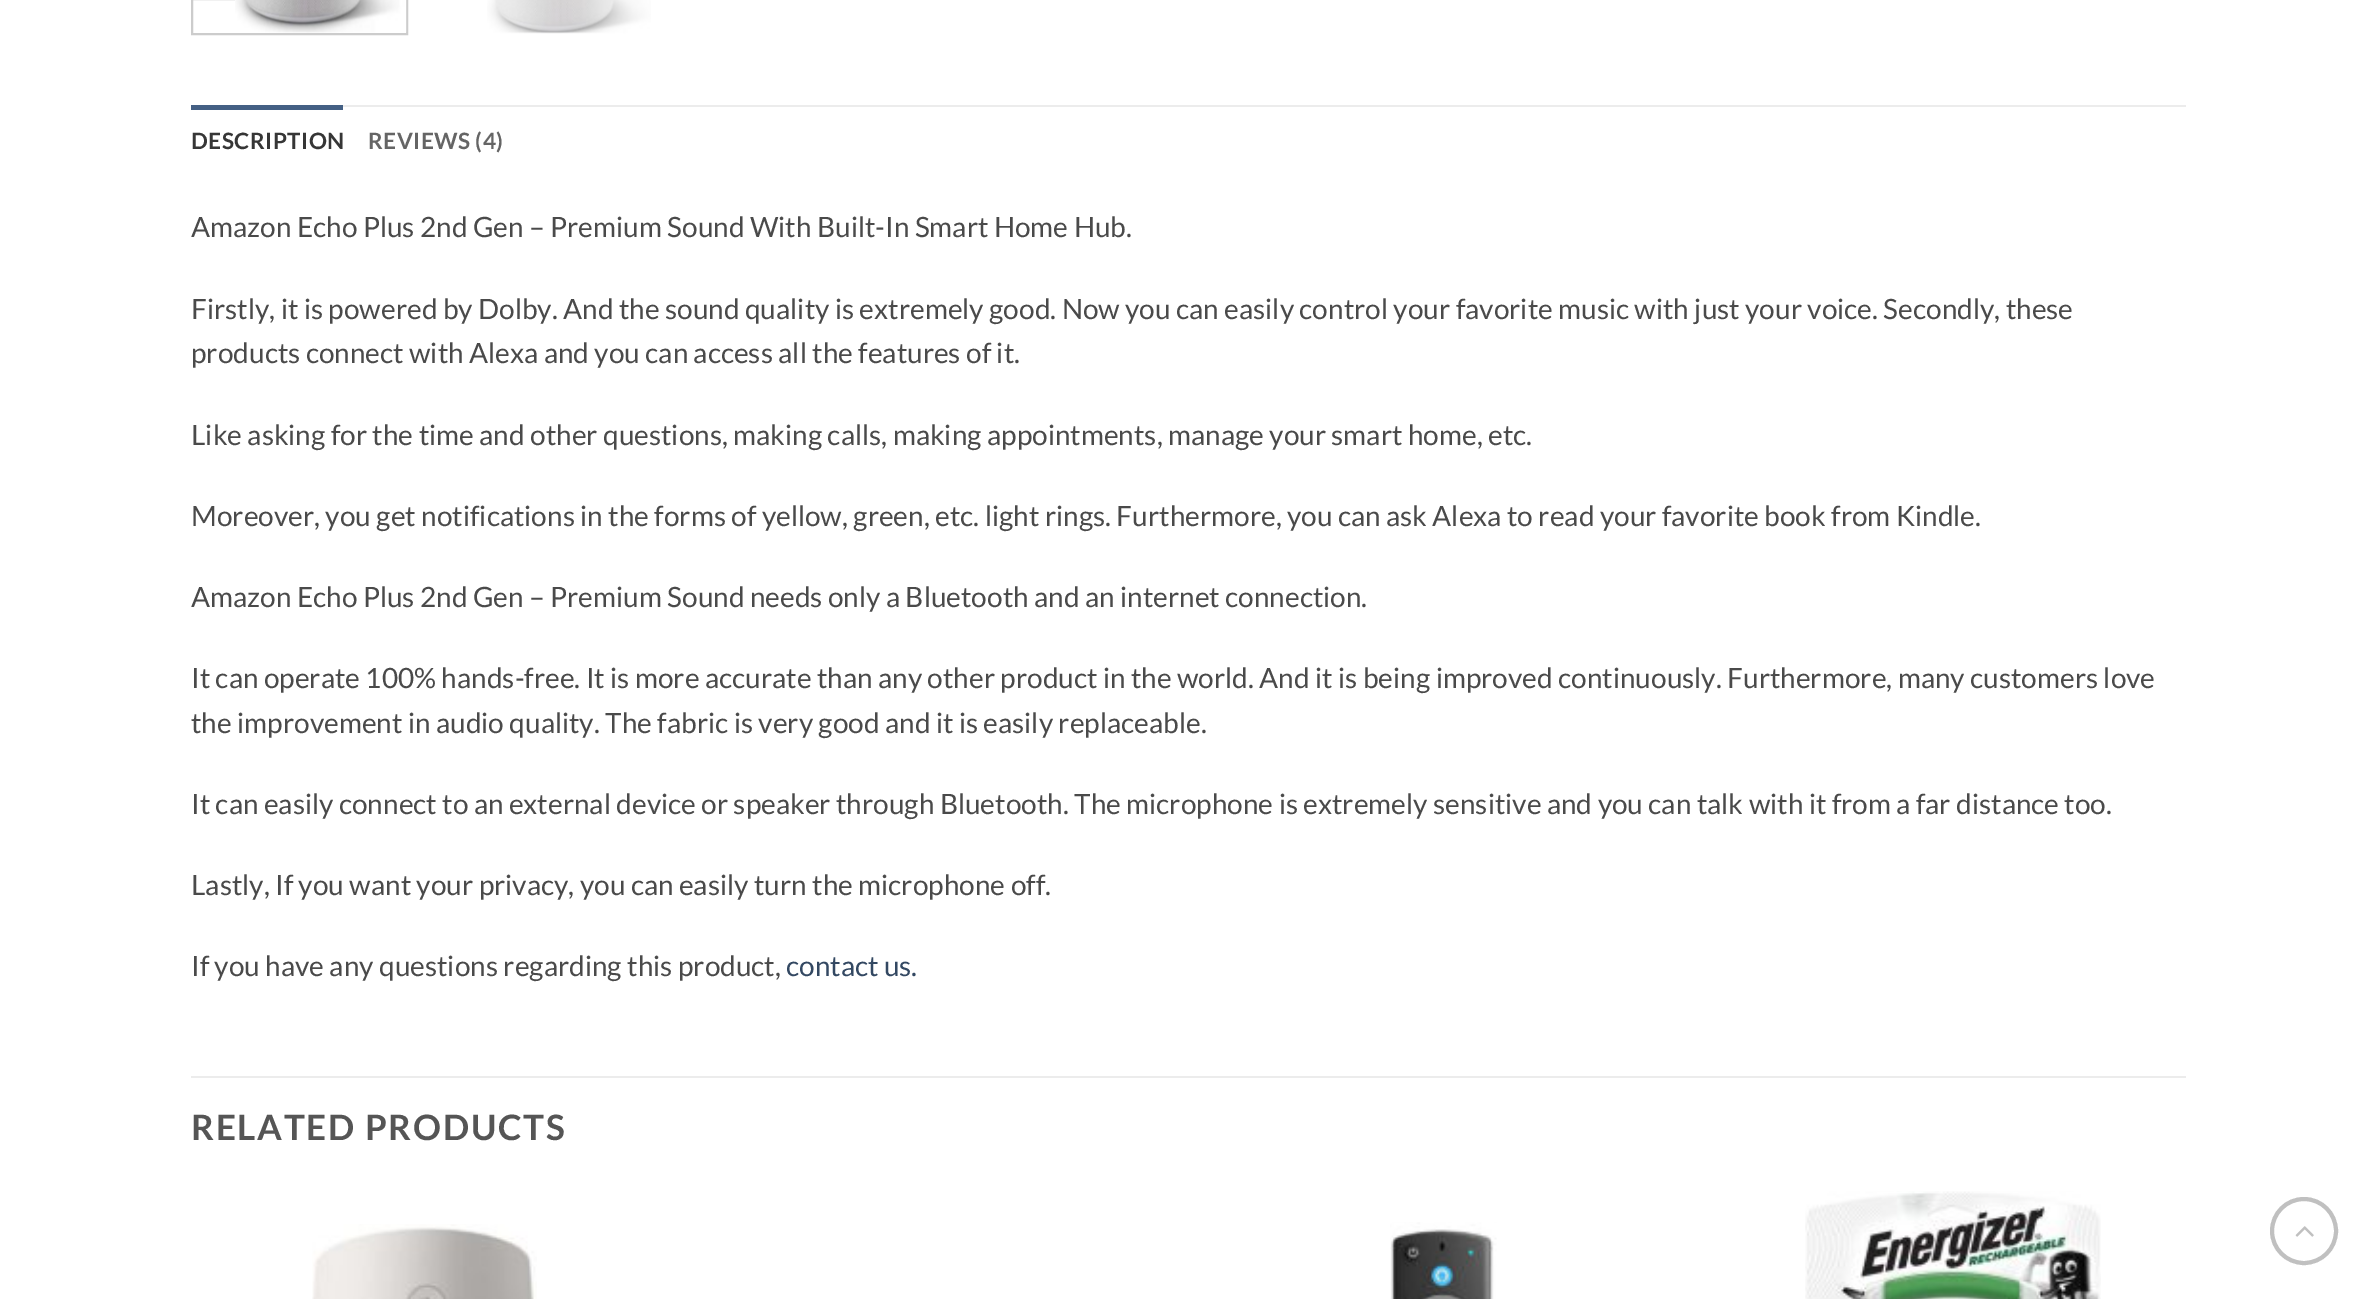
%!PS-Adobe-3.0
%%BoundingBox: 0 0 2376 1299
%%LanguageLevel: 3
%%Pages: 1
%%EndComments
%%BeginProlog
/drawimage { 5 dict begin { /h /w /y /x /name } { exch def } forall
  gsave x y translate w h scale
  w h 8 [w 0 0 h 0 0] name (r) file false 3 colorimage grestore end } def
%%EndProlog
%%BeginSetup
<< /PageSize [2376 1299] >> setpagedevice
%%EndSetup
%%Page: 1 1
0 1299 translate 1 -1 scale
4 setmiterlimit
1 setgray
0 0 2376 1299 rectfill
0.8 setgray
2 setlinewidth
192 -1 215 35 rectstroke
(images/1.raw) 235 0 172 33 drawimage
(images/2.raw) 487 0 164 34 drawimage
0.925 setgray
343 105 1843 2 rectfill
0.267 0.376 0.518 setrgbcolor
191 105 152 5 rectfill
0.925 setgray
191 1076 1995 2 rectfill
(images/3.raw) 312 1224 225 75 drawimage
(images/4.raw) 1390 1222 107 77 drawimage
(images/5.raw) 1805 1191 296 108 drawimage
0.753 setgray
4 setlinewidth
newpath 2304 1231 32 0 360 arc closepath stroke
(images/6.raw) 2295 1226 19 11 drawimage
/Lato-Bold [22.5 0 0 -22.5 0 0] selectfont
0.212 setgray
191 149 moveto 0.5 0 (DESCRIPTION) ashow
0.396 setgray
368 149 moveto 0.5 0 (REVIEWS \(4\)) ashow
/Lato-Regular [28 0 0 -28 0 0] selectfont
0.29 setgray
191 237 moveto (Amazon Echo Plus 2nd Gen – Premium Sound With Built-In Smart Home Hub.) show
191 319 moveto (Firstly, it is powered by Dolby. And the sound quality is extremely good. Now you can easily control your favorite music with just your voice. Secondly, these) show
191 363 moveto (products connect with Alexa and you can access all the features of it.) show
191 445 moveto (Like asking for the time and other questions, making calls, making appointments, manage your smart home, etc.) show
191 526 moveto (Moreover, you get notifications in the forms of yellow, green, etc. light rings. Furthermore, you can ask Alexa to read your favorite book from Kindle.) show
191 607 moveto (Amazon Echo Plus 2nd Gen – Premium Sound needs only a Bluetooth and an internet connection.) show
191 688 moveto (It can operate 100% hands-free. It is more accurate than any other product in the world. And it is being improved continuously. Furthermore, many customers love) show
191 733 moveto (the improvement in audio quality. The fabric is very good and it is easily replaceable.) show
191 814 moveto (It can easily connect to an external device or speaker through Bluetooth. The microphone is extremely sensitive and you can talk with it from a far distance too.) show
191 895 moveto (Lastly, If you want your privacy, you can easily turn the microphone off.) show
191 976 moveto (If you have any questions regarding this product,) show
0.2 0.282 0.384 setrgbcolor
786 976 moveto (contact us.) show
/Lato-Bold [35 0 0 -35 0 0] selectfont
0.333 setgray
191 1140 moveto 1.75 0 (RELATED PRODUCTS) ashow
showpage
%%EOF
